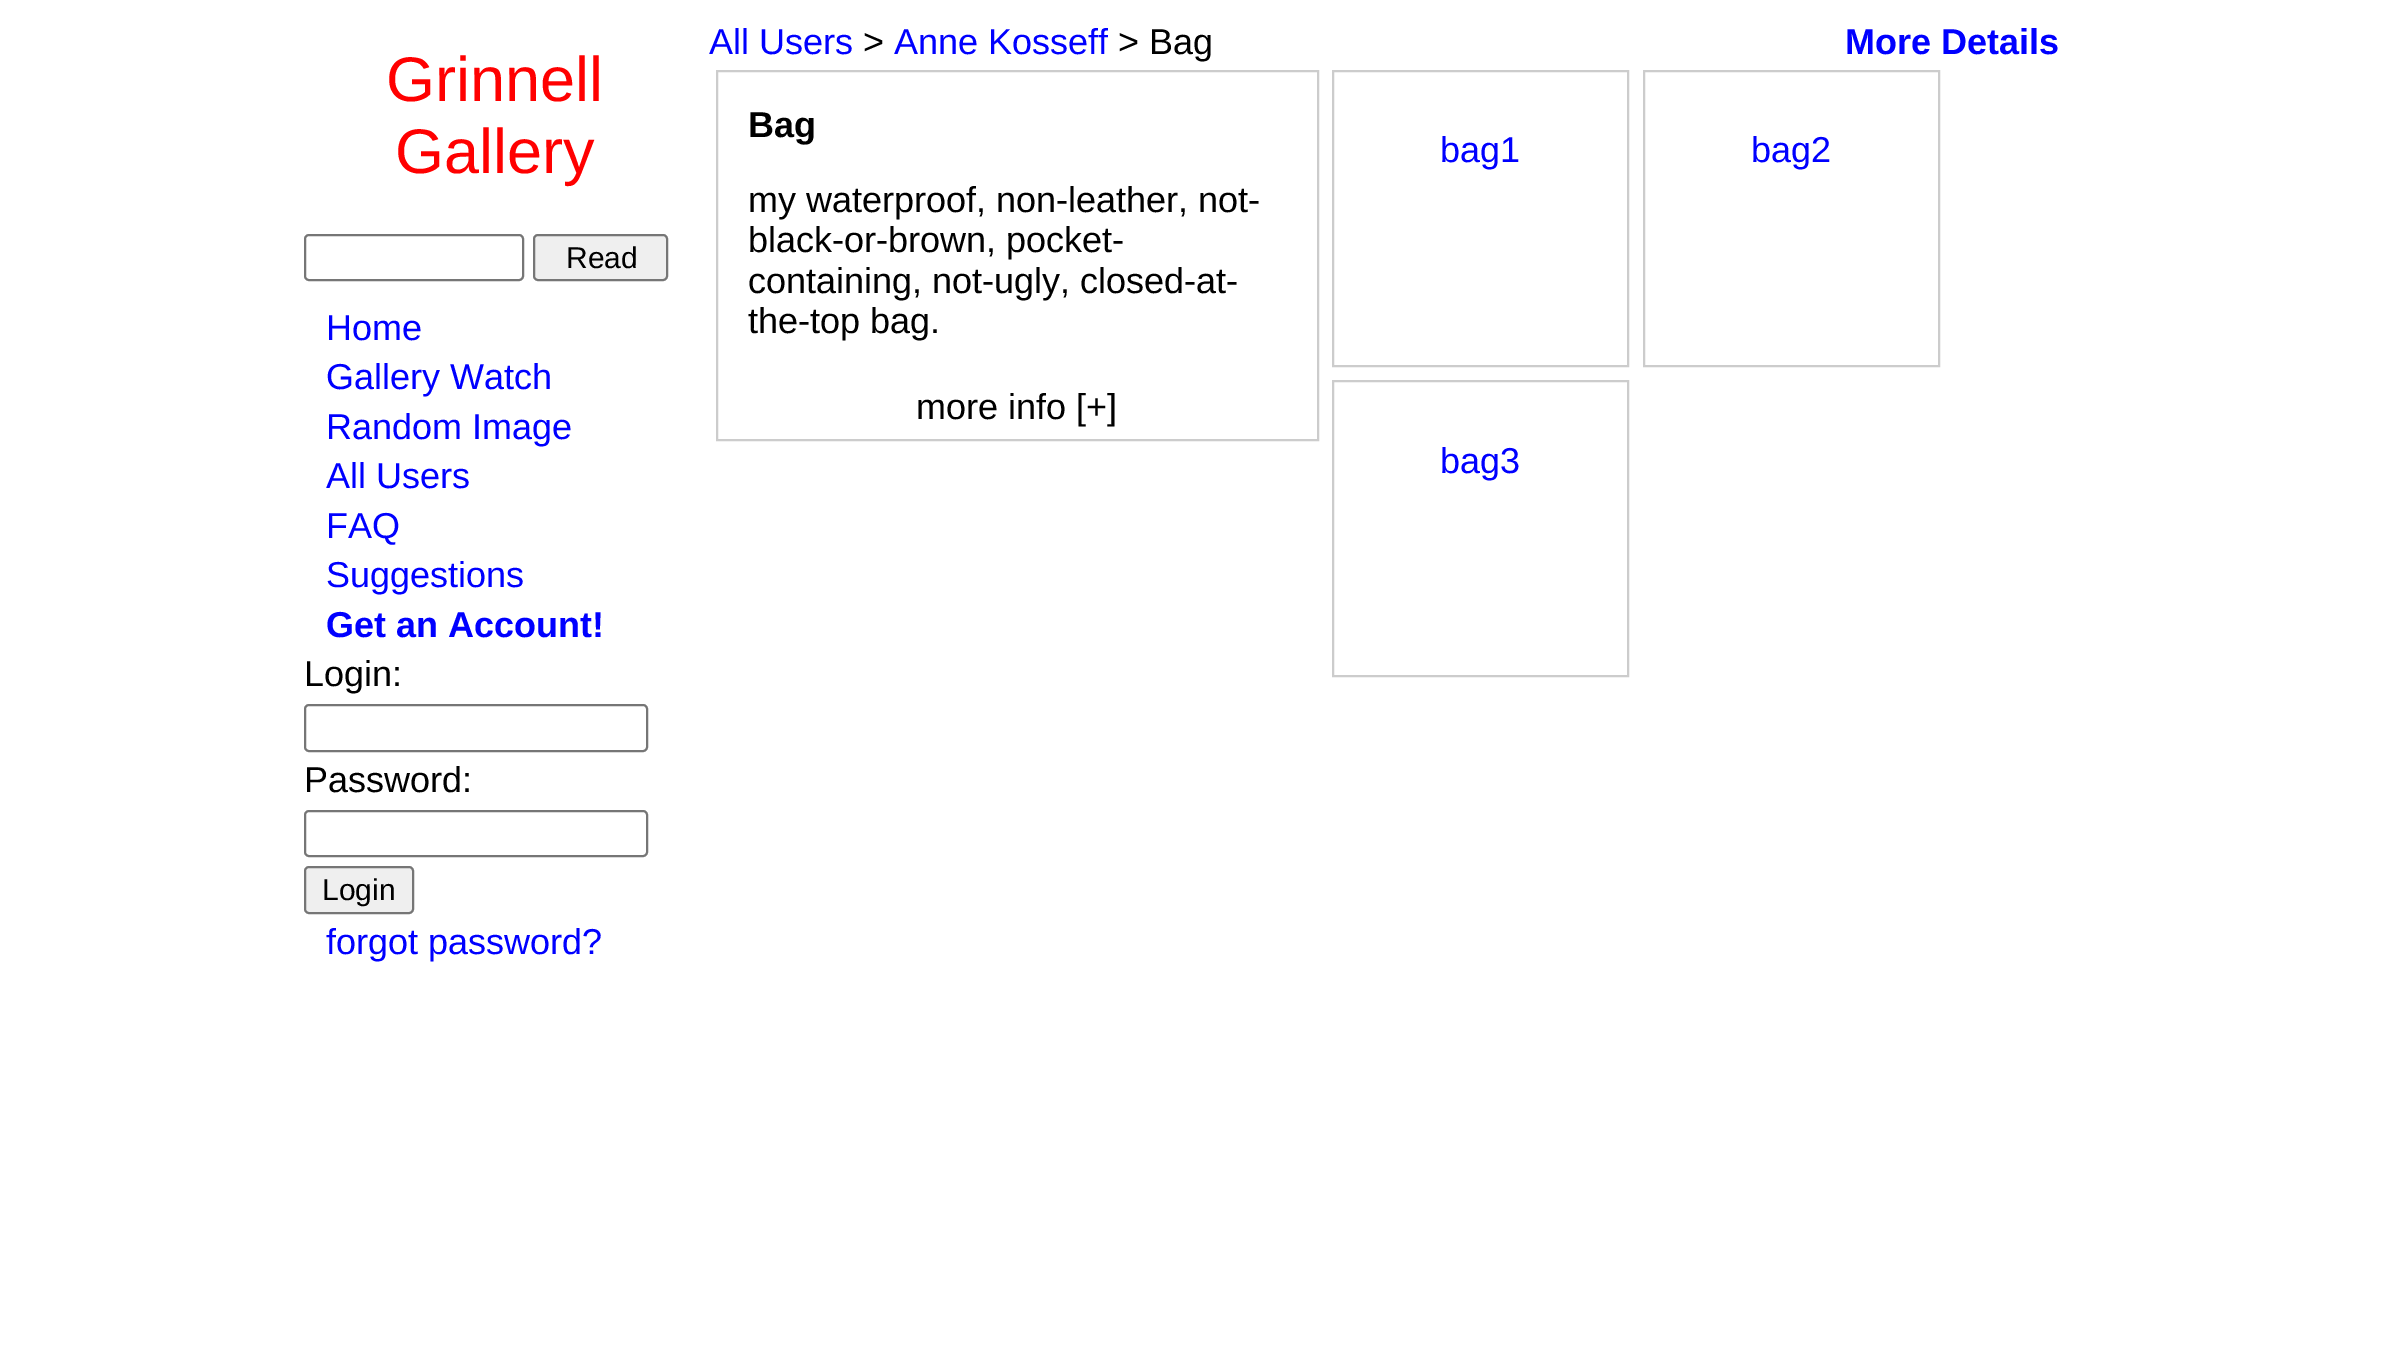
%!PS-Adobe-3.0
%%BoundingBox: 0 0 2385 1354
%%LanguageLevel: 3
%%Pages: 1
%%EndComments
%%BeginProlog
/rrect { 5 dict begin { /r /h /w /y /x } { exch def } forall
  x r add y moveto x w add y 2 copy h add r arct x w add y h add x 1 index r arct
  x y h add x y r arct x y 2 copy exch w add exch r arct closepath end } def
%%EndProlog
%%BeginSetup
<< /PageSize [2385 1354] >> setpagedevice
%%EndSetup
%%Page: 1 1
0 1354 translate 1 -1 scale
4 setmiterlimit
1 setgray
0 0 2385 1354 rectfill
0.463 setgray
2 setlinewidth
305 235 218 45 4 rrect stroke
0.937 setgray
534 235 133 45 4 rrect gsave fill grestore
0.463 setgray
stroke
305 705 342 46 4 rrect stroke
305 811 342 45 4 rrect stroke
0.937 setgray
305 867 108 46 4 rrect gsave fill grestore
0.463 setgray
stroke
0.8 setgray
717 71 601 369 rectstroke
1333 71 295 295 rectstroke
1644 71 295 295 rectstroke
1333 381 295 295 rectstroke
/LiberationSans-Regular [63 0 0 -63 0 0] selectfont
1 0 0 setrgbcolor
386 101 moveto (Grinnell) show
395 173 moveto (Gallery) show
/LiberationSans-Regular [30 0 0 -30 0 0] selectfont
0 setgray
566 268 moveto (Read) show
/LiberationSans-Regular [36 0 0 -36 0 0] selectfont
0 0 1 setrgbcolor
326 340 moveto (Home) show
326 389 moveto (Gallery Watch) show
326 439 moveto (Random Image) show
326 488 moveto (All Users) show
326 538 moveto (FAQ) show
326 587 moveto (Suggestions) show
/LiberationSans-Bold [36 0 0 -36 0 0] selectfont
326 637 moveto (Get an Account!) show
/LiberationSans-Regular [36 0 0 -36 0 0] selectfont
0 setgray
304 686 moveto (Login:) show
304 792 moveto (Password:) show
/LiberationSans-Regular [30 0 0 -30 0 0] selectfont
322 900 moveto (Login) show
/LiberationSans-Regular [36 0 0 -36 0 0] selectfont
0 0 1 setrgbcolor
326 954 moveto (forgot password?) show
709 54 moveto (All Users) show
0 setgray
863 54 moveto (>) show
0 0 1 setrgbcolor
894 54 moveto (Anne Kosseff) show
0 setgray
1118 54 moveto (> Bag) show
/LiberationSans-Bold [36 0 0 -36 0 0] selectfont
0 0 1 setrgbcolor
1845 54 moveto (More Details) show
0 setgray
748 137 moveto (Bag) show
/LiberationSans-Regular [36 0 0 -36 0 0] selectfont
748 212 moveto (my waterproof, non-leather, not-) show
748 252 moveto (black-or-brown, pocket-) show
748 293 moveto (containing, not-ugly, closed-at-) show
748 333 moveto (the-top bag.) show
916 419 moveto (more info [+]) show
0 0 1 setrgbcolor
1440 162 moveto (bag1) show
1751 162 moveto (bag2) show
1440 473 moveto (bag3) show
showpage
%%EOF
